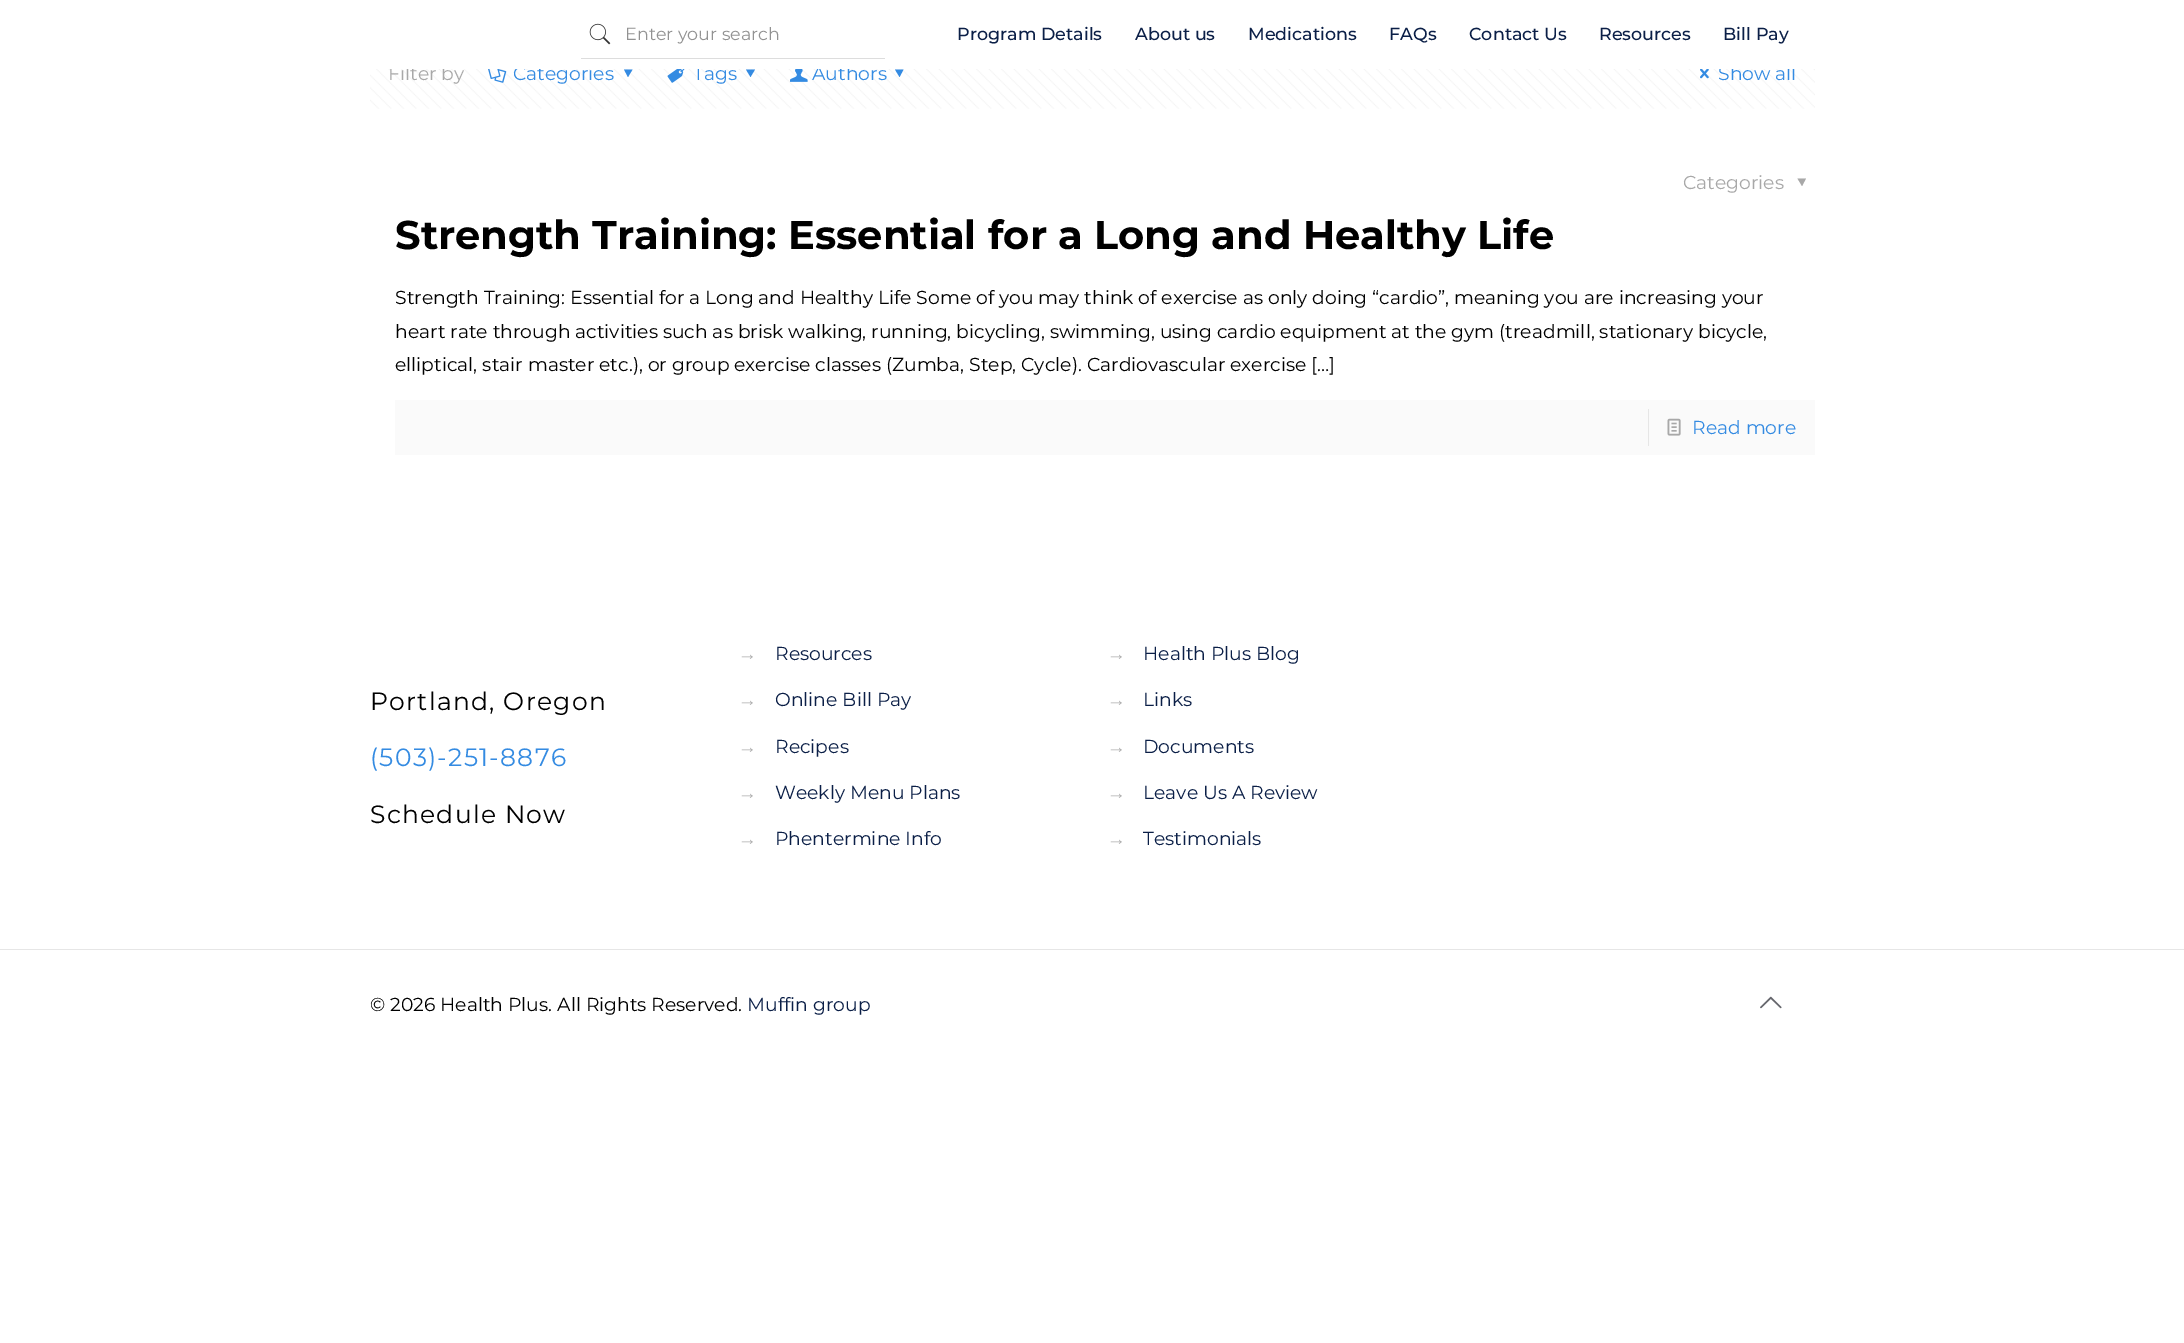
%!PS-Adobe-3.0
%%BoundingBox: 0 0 2184 1343
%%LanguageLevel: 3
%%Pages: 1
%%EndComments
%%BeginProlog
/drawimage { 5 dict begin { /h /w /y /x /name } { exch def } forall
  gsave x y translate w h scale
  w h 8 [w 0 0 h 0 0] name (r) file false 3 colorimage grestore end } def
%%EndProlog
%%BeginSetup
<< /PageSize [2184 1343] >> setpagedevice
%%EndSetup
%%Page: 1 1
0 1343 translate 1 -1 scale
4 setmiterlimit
1 setgray
0 0 2184 1343 rectfill
(images/1.raw) 589 23 22 22 drawimage
0.867 setgray
581 58 304 1 rectfill
(images/2.raw) 370 69 1445 40 drawimage
(images/3.raw) 488 69 19 14 drawimage
0.204 0.545 0.886 setrgbcolor
newpath 632.5 69.5 moveto 628 77 lineto 624 69.5 lineto closepath fill
(images/4.raw) 667 69 18 14 drawimage
newpath 755 69.5 moveto 750.5 77 lineto 746 69.5 lineto closepath fill
(images/5.raw) 790 69 18 13 drawimage
newpath 903.5 69.5 moveto 899.5 77 lineto 895 69.5 lineto closepath fill
(images/6.raw) 1700 69 9 10 drawimage
0.659 setgray
newpath 1806 178.5 moveto 1802 186 lineto 1797.5 178.5 lineto closepath fill
0.98 setgray
395 400 1420 55 rectfill
0.902 setgray
1648 409 1 37 rectfill
(images/7.raw) 1667 418 14 18 drawimage
0 949 2184 1 rectfill
(images/8.raw) 1760 996 22 13 drawimage
/Montserrat-Regular [17.5 0 0 -17.5 0 0] selectfont
0.573 setgray
625 40 moveto (Enter your search) show
/Montserrat-Medium [17.5 0 0 -17.5 0 0] selectfont
0.043 0.122 0.278 setrgbcolor
957 40 moveto (Program Details) show
1135 40 moveto (About us) show
1248 40 moveto (Medications) show
1389 40 moveto (FAQs) show
1469 40 moveto (Contact Us) show
1599 40 moveto (Resources) show
1723 40 moveto (Bill Pay) show
/Montserrat-Regular [18.75 0 0 -18.75 0 0] selectfont
0.659 setgray
388 80 moveto (Filter by) show
0.204 0.545 0.886 setrgbcolor
513 80 moveto (Categories) show
693 80 moveto (Tags) show
812 80 moveto (Authors) show
1718 80 moveto (Show all) show
1 setgray
390 66 1405 3 rectfill
0.659 setgray
1683 189 moveto (Categories) show
/Montserrat-Bold [40 0 0 -40 0 0] selectfont
0 setgray
395 249 moveto (Strength Training: Essential for a Long and Healthy Life) show
/Montserrat-Regular [18.75 0 0 -18.75 0 0] selectfont
395 304 moveto (Strength Training: Essential for a Long and Healthy Life Some of you may think of exercise as only doing “cardio”, meaning you are increasing your) show
395 338 moveto (heart rate through activities such as brisk walking, running, bicycling, swimming, using cardio equipment at the gym \(treadmill, stationary bicycle,) show
395 371 moveto (elliptical, stair master etc.\), or group exercise classes \(Zumba, Step, Cycle\). Cardiovascular exercise […]) show
0.204 0.545 0.886 setrgbcolor
1692 434 moveto (Read more) show
/Montserrat-Regular [25 0 0 -25 0 0] selectfont
0 setgray
370 710 moveto 1.25 0 (Portland, Oregon) ashow
0.204 0.545 0.886 setrgbcolor
370 766 moveto 1.25 0 (\(503\)-251-8876) ashow
0 setgray
370 823 moveto 1.25 0 (Schedule Now) ashow
/LiberationSans-Regular [18.75 0 0 -18.75 0 0] selectfont
0.694 setgray
738 660 moveto (→) show
/Montserrat-Regular [18.75 0 0 -18.75 0 0] selectfont
0.043 0.122 0.278 setrgbcolor
775 660 moveto (Resources) show
/LiberationSans-Regular [18.75 0 0 -18.75 0 0] selectfont
0.694 setgray
738 706 moveto (→) show
/Montserrat-Regular [18.75 0 0 -18.75 0 0] selectfont
0.043 0.122 0.278 setrgbcolor
775 706 moveto (Online Bill Pay) show
/LiberationSans-Regular [18.75 0 0 -18.75 0 0] selectfont
0.694 setgray
738 753 moveto (→) show
/Montserrat-Regular [18.75 0 0 -18.75 0 0] selectfont
0.043 0.122 0.278 setrgbcolor
775 753 moveto (Recipes) show
/LiberationSans-Regular [18.75 0 0 -18.75 0 0] selectfont
0.694 setgray
738 799 moveto (→) show
/Montserrat-Regular [18.75 0 0 -18.75 0 0] selectfont
0.043 0.122 0.278 setrgbcolor
775 799 moveto (Weekly Menu Plans) show
/LiberationSans-Regular [18.75 0 0 -18.75 0 0] selectfont
0.694 setgray
738 845 moveto (→) show
/Montserrat-Regular [18.75 0 0 -18.75 0 0] selectfont
0.043 0.122 0.278 setrgbcolor
775 845 moveto (Phentermine Info) show
/LiberationSans-Regular [18.75 0 0 -18.75 0 0] selectfont
0.694 setgray
1107 660 moveto (→) show
/Montserrat-Regular [18.75 0 0 -18.75 0 0] selectfont
0.043 0.122 0.278 setrgbcolor
1143 660 moveto (Health Plus Blog) show
/LiberationSans-Regular [18.75 0 0 -18.75 0 0] selectfont
0.694 setgray
1107 706 moveto (→) show
/Montserrat-Regular [18.75 0 0 -18.75 0 0] selectfont
0.043 0.122 0.278 setrgbcolor
1143 706 moveto (Links) show
/LiberationSans-Regular [18.75 0 0 -18.75 0 0] selectfont
0.694 setgray
1107 753 moveto (→) show
/Montserrat-Regular [18.75 0 0 -18.75 0 0] selectfont
0.043 0.122 0.278 setrgbcolor
1143 753 moveto (Documents) show
/LiberationSans-Regular [18.75 0 0 -18.75 0 0] selectfont
0.694 setgray
1107 799 moveto (→) show
/Montserrat-Regular [18.75 0 0 -18.75 0 0] selectfont
0.043 0.122 0.278 setrgbcolor
1143 799 moveto (Leave Us A Review) show
/LiberationSans-Regular [18.75 0 0 -18.75 0 0] selectfont
0.694 setgray
1107 845 moveto (→) show
/Montserrat-Regular [18.75 0 0 -18.75 0 0] selectfont
0.043 0.122 0.278 setrgbcolor
1143 845 moveto (Testimonials) show
0 setgray
370 1011 moveto (© 2026 Health Plus. All Rights Reserved.) show
0.043 0.122 0.278 setrgbcolor
747 1011 moveto (Muffin group) show
showpage
%%EOF
